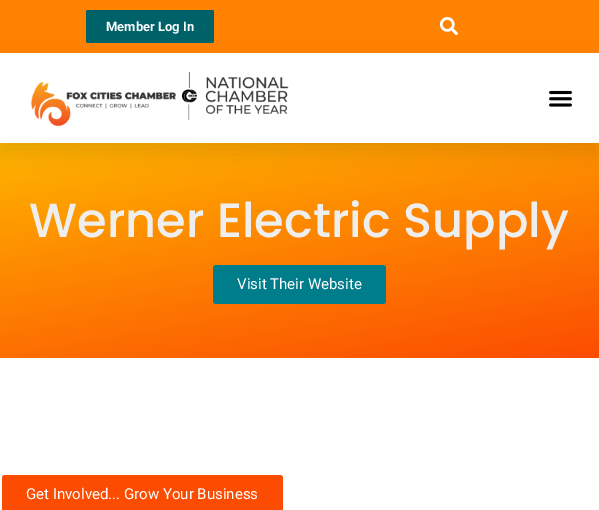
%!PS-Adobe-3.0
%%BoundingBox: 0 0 599 510
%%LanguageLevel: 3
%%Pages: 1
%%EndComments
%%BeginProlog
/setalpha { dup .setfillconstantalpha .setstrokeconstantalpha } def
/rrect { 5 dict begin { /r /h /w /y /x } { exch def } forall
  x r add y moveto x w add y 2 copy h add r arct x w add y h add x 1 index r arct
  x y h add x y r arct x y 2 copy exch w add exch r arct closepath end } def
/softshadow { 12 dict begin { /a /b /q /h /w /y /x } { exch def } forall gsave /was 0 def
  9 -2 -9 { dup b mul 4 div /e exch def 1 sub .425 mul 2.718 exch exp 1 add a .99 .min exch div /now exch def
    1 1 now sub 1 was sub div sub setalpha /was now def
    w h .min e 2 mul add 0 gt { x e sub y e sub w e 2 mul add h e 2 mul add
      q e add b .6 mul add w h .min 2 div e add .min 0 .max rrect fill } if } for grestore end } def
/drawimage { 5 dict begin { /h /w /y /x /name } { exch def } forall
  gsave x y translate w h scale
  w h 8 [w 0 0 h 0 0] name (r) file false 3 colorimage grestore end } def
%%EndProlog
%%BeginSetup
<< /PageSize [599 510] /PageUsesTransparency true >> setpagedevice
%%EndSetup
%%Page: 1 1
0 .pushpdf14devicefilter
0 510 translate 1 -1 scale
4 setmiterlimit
1 setgray
0 0 599 510 rectfill
1 0.51 0 setrgbcolor
0 0 599 53 rectfill
0 0.384 0.412 setrgbcolor
86 10 128 33 2 rrect fill
(images/1.raw) 439 17 19 19 drawimage
gsave newpath 0 143 moveto 599 143 lineto 599 358 lineto 0 358 lineto closepath clip newpath
<< /ShadingType 2 /ColorSpace /DeviceRGB /Coords [272 95 327 406] /Extend [true true] /Function << /FunctionType 2 /Domain [0 1] /C0 [1 0.71 0] /C1 [0.988 0.298 0.008] /N 1 >> >> shfill grestore
0 setgray
0 63 599 90 0 10 0.1 softshadow
1 setgray
0 53 599 90 rectfill
(images/2.raw) 31 71 258 56 drawimage
(images/3.raw) 549 90 23 17 drawimage
0 0.49 0.541 setrgbcolor
213 265 173 39 3 rrect fill
0.988 0.298 0.008 setrgbcolor
2 475 281 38 3 rrect fill
/Roboto-Bold [13 0 0 -13 0 0] selectfont
1 setgray
106 31 moveto (Member Log In) show
/Poppins-Medium [48 0 0 -48 0 0] selectfont
0.933 setgray
29 237 moveto (Werner Electric Supply) show
/Roboto-Regular [15 0 0 -15 0 0] selectfont
1 setgray
237 289 moveto (Visit Their Website) show
26 499 moveto (Get Involved... Grow Your Business) show
.poppdf14devicefilter showpage
%%EOF
